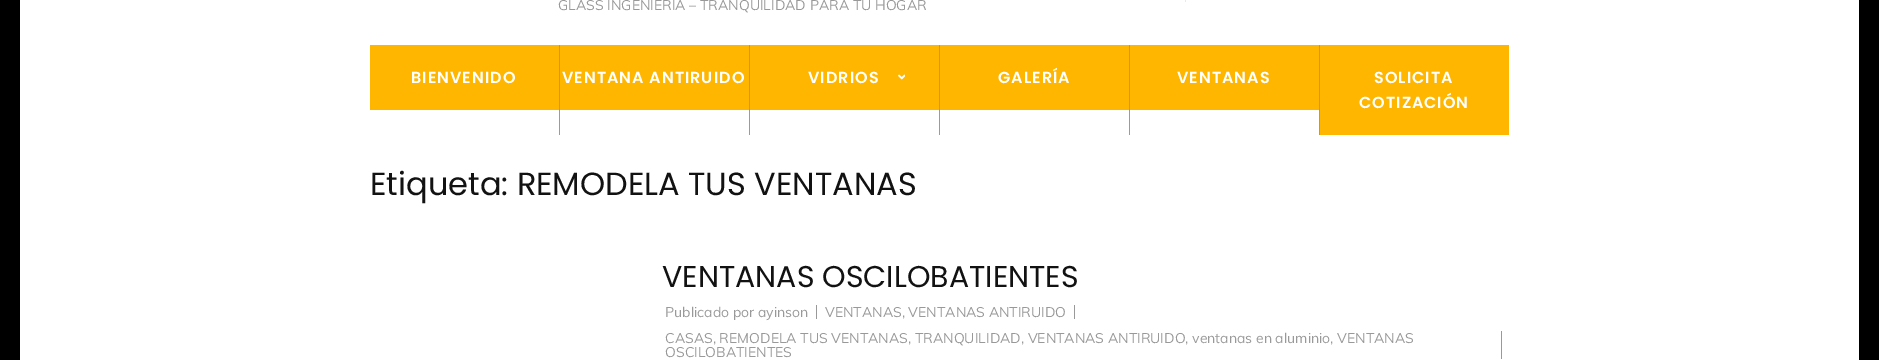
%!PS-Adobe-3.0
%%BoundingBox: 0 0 1879 360
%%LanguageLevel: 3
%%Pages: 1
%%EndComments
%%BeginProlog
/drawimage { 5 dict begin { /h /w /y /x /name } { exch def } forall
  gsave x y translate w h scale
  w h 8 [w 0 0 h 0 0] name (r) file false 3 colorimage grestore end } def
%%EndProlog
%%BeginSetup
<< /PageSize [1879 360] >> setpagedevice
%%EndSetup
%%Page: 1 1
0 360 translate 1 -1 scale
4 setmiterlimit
0 setgray
0 0 1879 360 rectfill
1 setgray
20 0 1839 360 rectfill
0.914 setgray
1185 0 1 2 rectfill
0.839 0.604 0.008 setrgbcolor
559 45 1 90 rectfill
1 0.714 0 setrgbcolor
370 45 189 65 rectfill
0.839 0.604 0.008 setrgbcolor
749 45 1 90 rectfill
1 0.714 0 setrgbcolor
560 45 189 65 rectfill
0.839 0.604 0.008 setrgbcolor
939 45 1 90 rectfill
1 0.714 0 setrgbcolor
750 45 189 65 rectfill
(images/1.raw) 898 74 7 6 drawimage
0.839 0.604 0.008 setrgbcolor
1129 45 1 90 rectfill
1 0.714 0 setrgbcolor
940 45 189 65 rectfill
0.839 0.604 0.008 setrgbcolor
1319 45 1 90 rectfill
1 0.714 0 setrgbcolor
1130 45 189 65 rectfill
1320 45 189 90 rectfill
0.6 setgray
816 305 1 14 rectfill
1074 305 1 14 rectfill
1501 331 1 28 rectfill
/Muli-Regular [14 0 0 -14 0 0] selectfont
558 10 moveto (GLASS INGENIERÍA – TRANQUILIDAD PARA TU HOGAR) show
/Poppins-SemiBold [16 0 0 -16 0 0] selectfont
1 setgray
411 83 moveto 1 0 (BIENVENIDO) ashow
562 83 moveto 1 0 (VENTANA ANTIRUIDO) ashow
808 83 moveto 1 0 (VIDRIOS) ashow
998 83 moveto 1 0 (GALERÍA) ashow
1177 83 moveto 1 0 (VENTANAS) ashow
1374 83 moveto 1 0 (SOLICITA) ashow
1359 108 moveto 1 0 (COTIZACIÓN) ashow
/Poppins-Regular [32 0 0 -32 0 0] selectfont
0.071 setgray
370 195 moveto (Etiqueta: REMODELA TUS VENTANAS) show
/Poppins-Regular [30 0 0 -30 0 0] selectfont
662 287 moveto (VENTANAS OSCILOBATIENTES) show
/Muli-Regular [14 0 0 -14 0 0] selectfont
0.6 setgray
665 317 moveto (Publicado por) show
758 317 moveto (ayinson) show
825 317 moveto (VENTANAS, VENTANAS ANTIRUIDO) show
665 343 moveto (CASAS, REMODELA TUS VENTANAS, TRANQUILIDAD, VENTANAS ANTIRUIDO, ventanas en aluminio, VENTANAS) show
665 357 moveto (OSCILOBATIENTES) show
showpage
%%EOF
